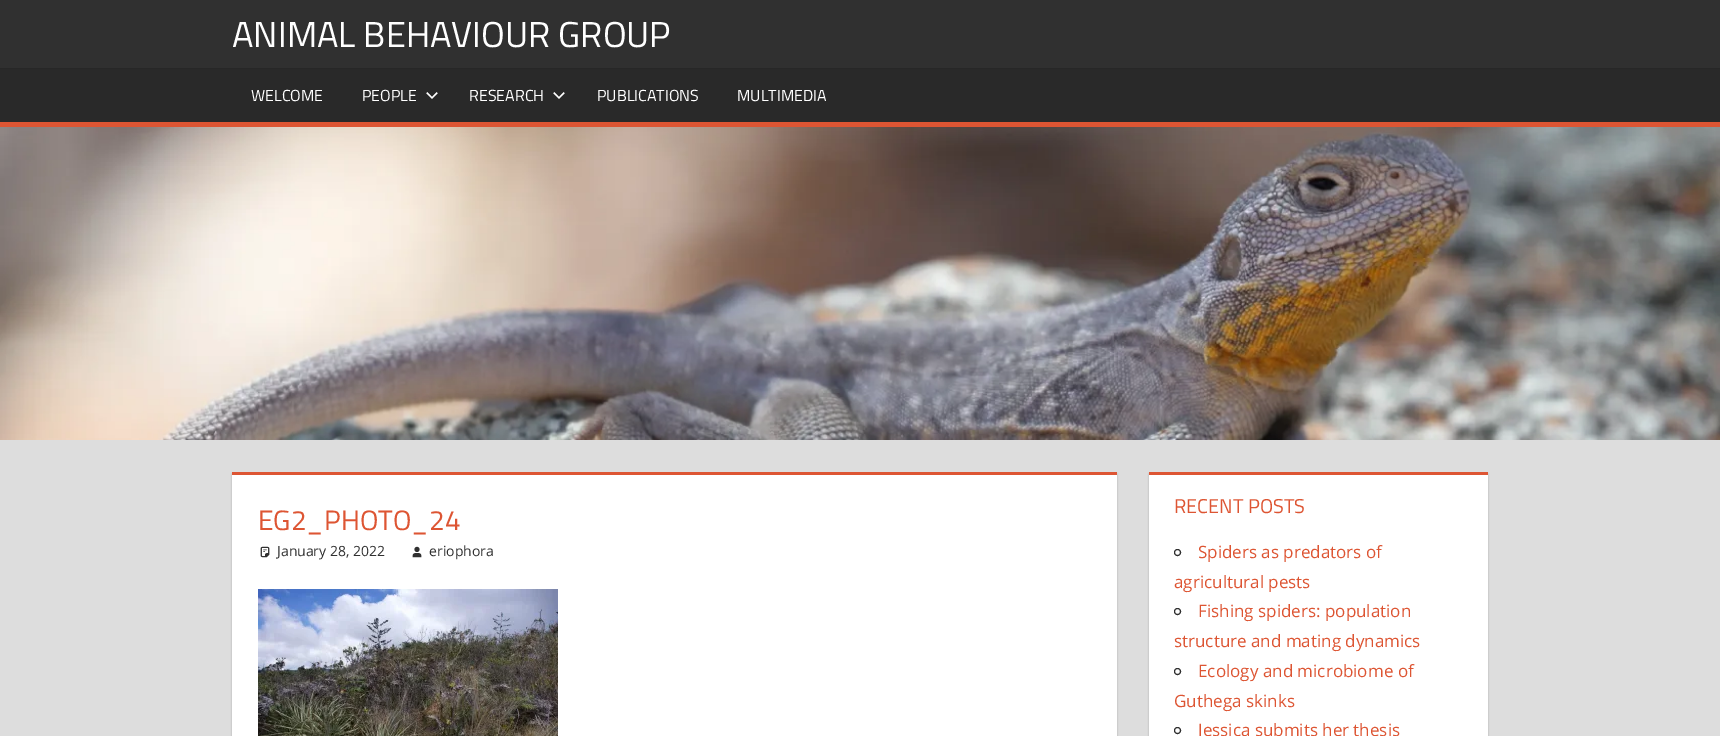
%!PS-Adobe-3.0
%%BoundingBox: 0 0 1720 736
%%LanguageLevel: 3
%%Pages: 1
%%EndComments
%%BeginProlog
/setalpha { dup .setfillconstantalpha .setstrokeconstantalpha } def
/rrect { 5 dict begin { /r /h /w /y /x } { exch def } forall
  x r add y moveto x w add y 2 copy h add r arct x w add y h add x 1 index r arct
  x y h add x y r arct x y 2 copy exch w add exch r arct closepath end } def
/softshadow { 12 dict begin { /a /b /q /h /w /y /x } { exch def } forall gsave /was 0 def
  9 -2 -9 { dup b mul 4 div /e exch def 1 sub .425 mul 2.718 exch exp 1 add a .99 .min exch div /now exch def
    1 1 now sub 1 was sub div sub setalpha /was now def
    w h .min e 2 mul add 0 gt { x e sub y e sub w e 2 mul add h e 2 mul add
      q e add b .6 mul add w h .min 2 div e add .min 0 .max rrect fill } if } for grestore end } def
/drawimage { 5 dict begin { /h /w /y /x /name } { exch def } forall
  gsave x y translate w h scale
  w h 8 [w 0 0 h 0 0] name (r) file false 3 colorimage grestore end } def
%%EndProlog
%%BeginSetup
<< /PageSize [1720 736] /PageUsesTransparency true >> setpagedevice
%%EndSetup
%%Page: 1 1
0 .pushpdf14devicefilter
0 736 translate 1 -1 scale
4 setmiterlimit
0.867 setgray
0 0 1720 736 rectfill
0.188 setgray
0 0 1720 68 rectfill
0.161 setgray
0 69 1720 53 rectfill
0.153 setgray
0 68 1720 1 rectfill
0.867 0.333 0.2 setrgbcolor
0 122 1720 5 rectfill
(images/1.raw) 426 92 12 7 drawimage
(images/1.raw) 553 92 12 7 drawimage
(images/2.raw) 0 127 1720 313 drawimage
0.667 setgray
232 474 885 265 0 1 1 softshadow
1 setgray
232 475 885 261 rectfill
0.867 0.333 0.2 setrgbcolor
232 472 885 3 rectfill
(images/3.raw) 260 546 10 12 drawimage
(images/4.raw) 412 546 10 12 drawimage
(images/5.raw) 258 589 300 147 drawimage
0.667 setgray
1149 474 339 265 0 1 1 softshadow
1 setgray
1149 475 339 261 rectfill
0.867 0.333 0.2 setrgbcolor
1149 472 339 3 rectfill
0.188 setgray
newpath 1177.5 552.5 3 0 360 arc closepath stroke
newpath 1177.5 611.5 3 0 360 arc closepath stroke
newpath 1177.5 671.5 3 0 360 arc closepath stroke
newpath 1177.5 730.5 3 0 360 arc closepath stroke
/TitilliumWeb-Regular [36 0 0 -36 0 0] selectfont
1 setgray
232 47 moveto (ANIMAL BEHAVIOUR GROUP) show
/TitilliumWeb-Regular [16 0 0 -16 0 0] selectfont
251 101 moveto (WELCOME) show
362 101 moveto (PEOPLE) show
469 101 moveto (RESEARCH) show
597 101 moveto (PUBLICATIONS) show
737 101 moveto (MULTIMEDIA) show
/TitilliumWeb-Regular [28 0 0 -28 0 0] selectfont
0.867 0.333 0.2 setrgbcolor
258 530 moveto (EG2_PHOTO_24) show
/OpenSans-Regular [14 0 0 -14 0 0] selectfont
0.188 setgray
277 556 moveto (January 28, 2022) show
429 556 moveto (eriophora) show
/TitilliumWeb-Regular [20 0 0 -20 0 0] selectfont
0.867 0.333 0.2 setrgbcolor
1174 513 moveto (RECENT POSTS) show
/OpenSans-Regular [17 0 0 -17 0 0] selectfont
1198 558 moveto (Spiders as predators of) show
1174 588 moveto (agricultural pests) show
1198 617 moveto (Fishing spiders: population) show
1174 647 moveto (structure and mating dynamics) show
1198 677 moveto (Ecology and microbiome of) show
1174 707 moveto (Guthega skinks) show
1198 736 moveto (Jessica submits her thesis) show
.poppdf14devicefilter showpage
%%EOF
